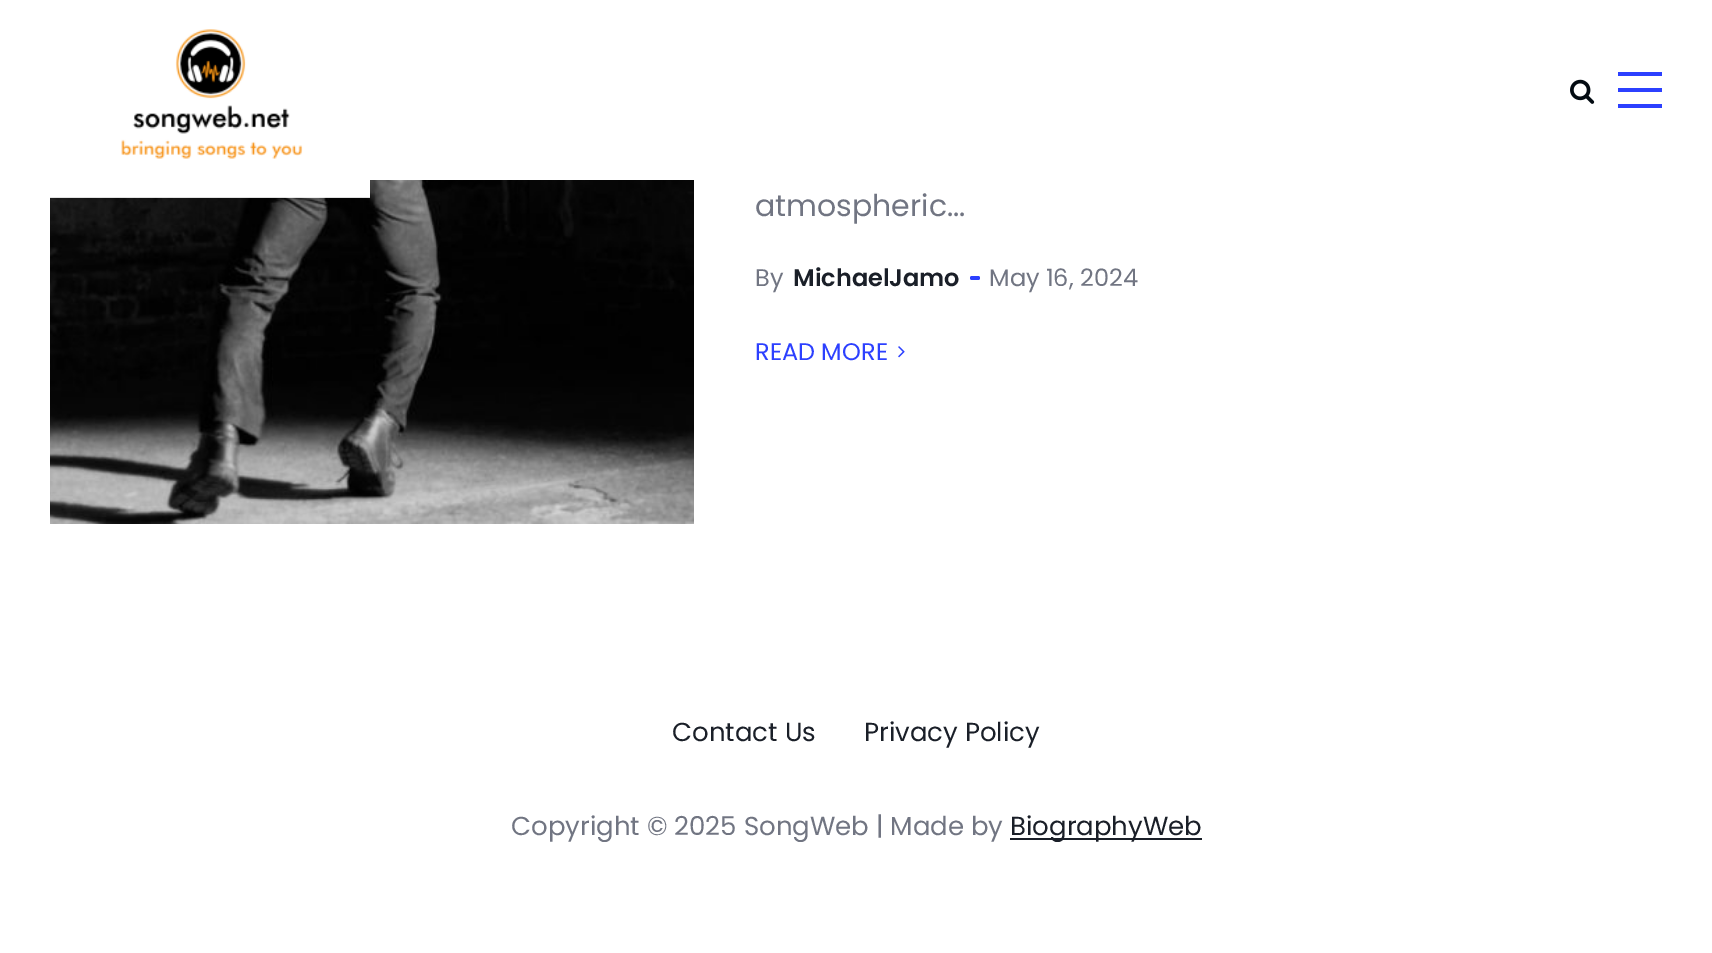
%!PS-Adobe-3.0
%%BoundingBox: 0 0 1712 953
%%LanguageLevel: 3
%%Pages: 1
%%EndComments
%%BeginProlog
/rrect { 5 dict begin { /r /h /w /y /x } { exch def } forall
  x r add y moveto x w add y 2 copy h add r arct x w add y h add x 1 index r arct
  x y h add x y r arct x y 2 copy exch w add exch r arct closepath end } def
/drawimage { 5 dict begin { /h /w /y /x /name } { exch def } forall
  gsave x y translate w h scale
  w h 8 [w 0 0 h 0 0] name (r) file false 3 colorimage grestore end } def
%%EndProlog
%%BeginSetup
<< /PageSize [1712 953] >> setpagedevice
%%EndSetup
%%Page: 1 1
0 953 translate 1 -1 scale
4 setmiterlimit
1 setgray
0 0 1712 953 rectfill
(images/3.raw) 50 180 644 344 drawimage
(images/1.raw) 50 29 320 169 drawimage
(images/2.raw) 1570 79 25 25 drawimage
0.173 0.251 1 setrgbcolor
1618 72 44 4 rectfill
1618 88 44 4 rectfill
1618 104 44 4 rectfill
970 276 10 4 2 rrect fill
(images/4.raw) 898 346 7 12 drawimage
0.102 0.122 0.157 setrgbcolor
1010 838 192 2 rectfill
/Poppins-Regular [30 0 0 -30 0 0] selectfont
0.443 0.459 0.51 setrgbcolor
755 216 moveto (atmospheric...) show
/Poppins-Regular [24 0 0 -24 0 0] selectfont
755 286 moveto (By) show
/Poppins-SemiBold [24 0 0 -24 0 0] selectfont
0.102 0.122 0.157 setrgbcolor
793 286 moveto (MichaelJamo) show
/Poppins-Regular [24 0 0 -24 0 0] selectfont
0.443 0.459 0.51 setrgbcolor
989 286 moveto (May 16, 2024) show
0.173 0.251 1 setrgbcolor
755 360 moveto (READ MORE) show
/Poppins-Regular [26 0 0 -26 0 0] selectfont
0.102 0.122 0.157 setrgbcolor
672 741 moveto (Contact Us) show
864 741 moveto (Privacy Policy) show
0.443 0.459 0.51 setrgbcolor
511 835 moveto (Copyright © 2025 SongWeb | Made by) show
0.102 0.122 0.157 setrgbcolor
1010 835 moveto (BiographyWeb) show
showpage
%%EOF
